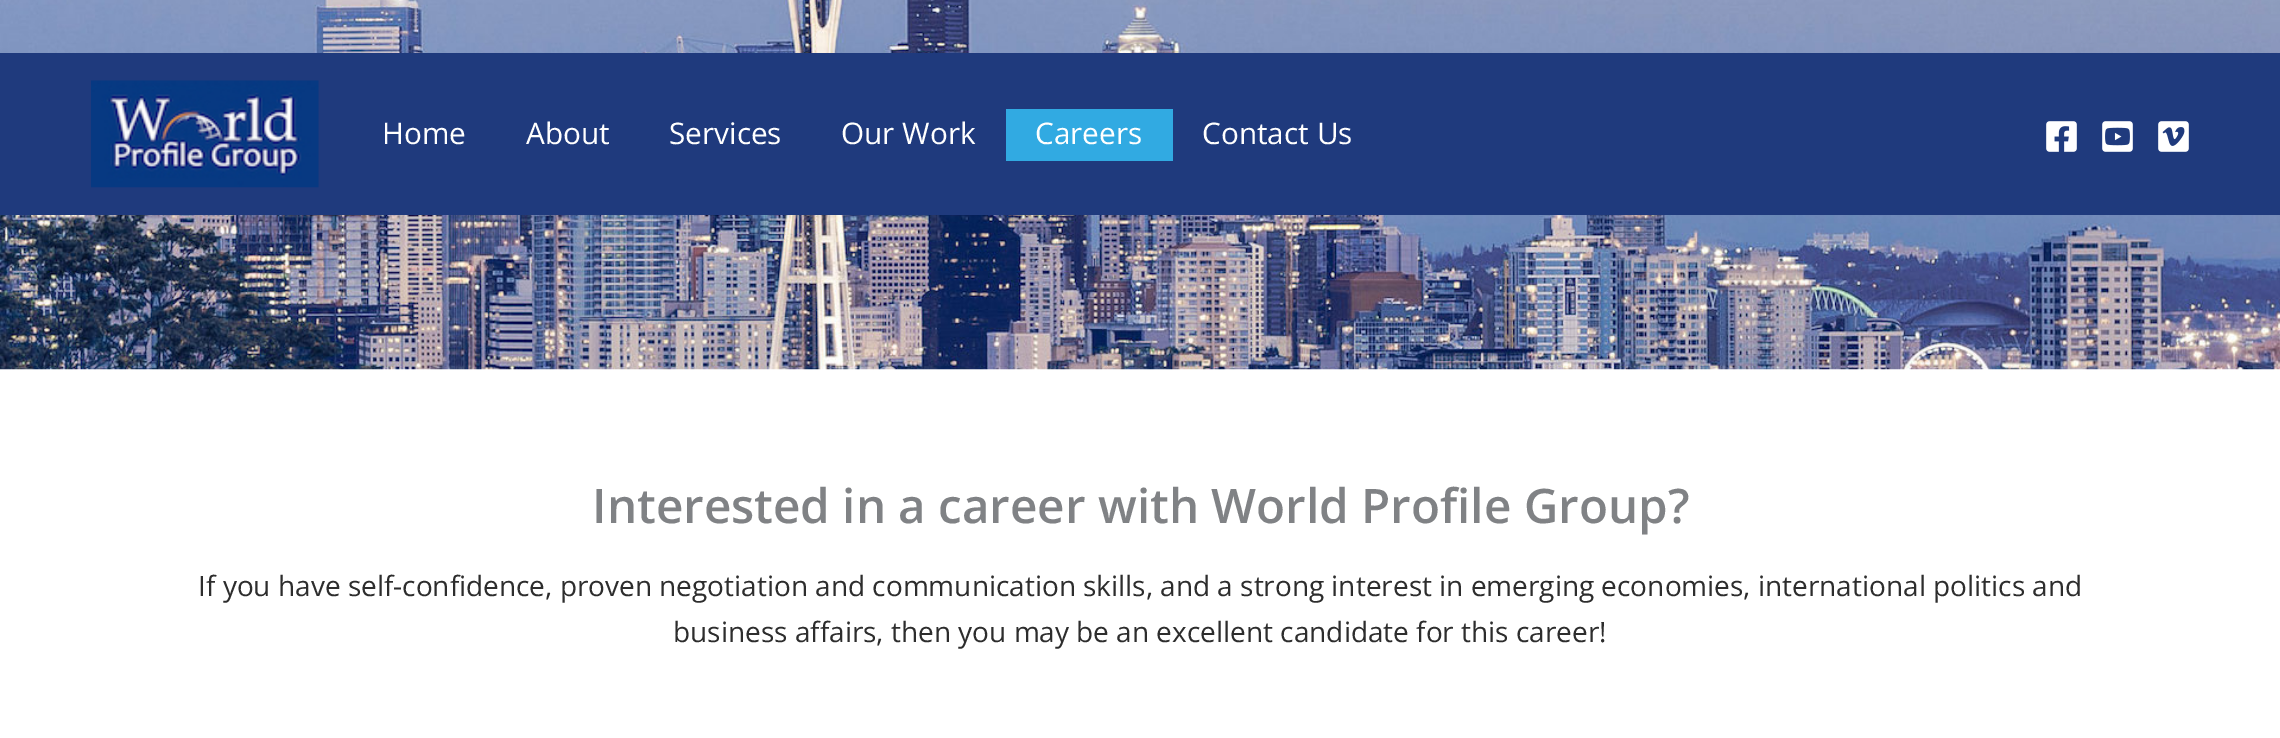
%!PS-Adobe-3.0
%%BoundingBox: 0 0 2280 738
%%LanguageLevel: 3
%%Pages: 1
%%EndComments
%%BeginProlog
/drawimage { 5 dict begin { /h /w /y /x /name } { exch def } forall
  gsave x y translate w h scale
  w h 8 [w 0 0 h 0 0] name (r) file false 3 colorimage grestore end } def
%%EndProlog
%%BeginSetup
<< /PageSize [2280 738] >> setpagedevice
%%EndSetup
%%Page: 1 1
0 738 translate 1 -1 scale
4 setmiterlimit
1 setgray
0 0 2280 738 rectfill
(images/5.raw) 0 0 2280 370 drawimage
0.122 0.227 0.49 setrgbcolor
0 53 2280 162 rectfill
(images/1.raw) 91 80 228 108 drawimage
0.192 0.667 0.886 setrgbcolor
1006 109 167 52 rectfill
(images/2.raw) 2046 121 31 31 drawimage
(images/3.raw) 2102 121 31 31 drawimage
(images/4.raw) 2158 121 31 31 drawimage
/OpenSans-Regular [29.75 0 0 -29.75 0 0] selectfont
1 setgray
382 144 moveto (Home) show
526 144 moveto (About) show
669 144 moveto (Services) show
841 144 moveto (Our Work) show
1035 144 moveto (Careers) show
1202 144 moveto (Contact Us) show
/OpenSans-SemiBold [47.6 0 0 -47.6 0 0] selectfont
0.502 0.51 0.522 setrgbcolor
592 523 moveto (Interested in a career with World Profile Group?) show
/OpenSans-Regular [28 0 0 -28 0 0] selectfont
0.176 setgray
198 596 moveto (If you have self-confidence, proven negotiation and communication skills, and a strong interest in emerging economies, international politics and) show
673 642 moveto (business affairs, then you may be an excellent candidate for this career!) show
showpage
%%EOF
